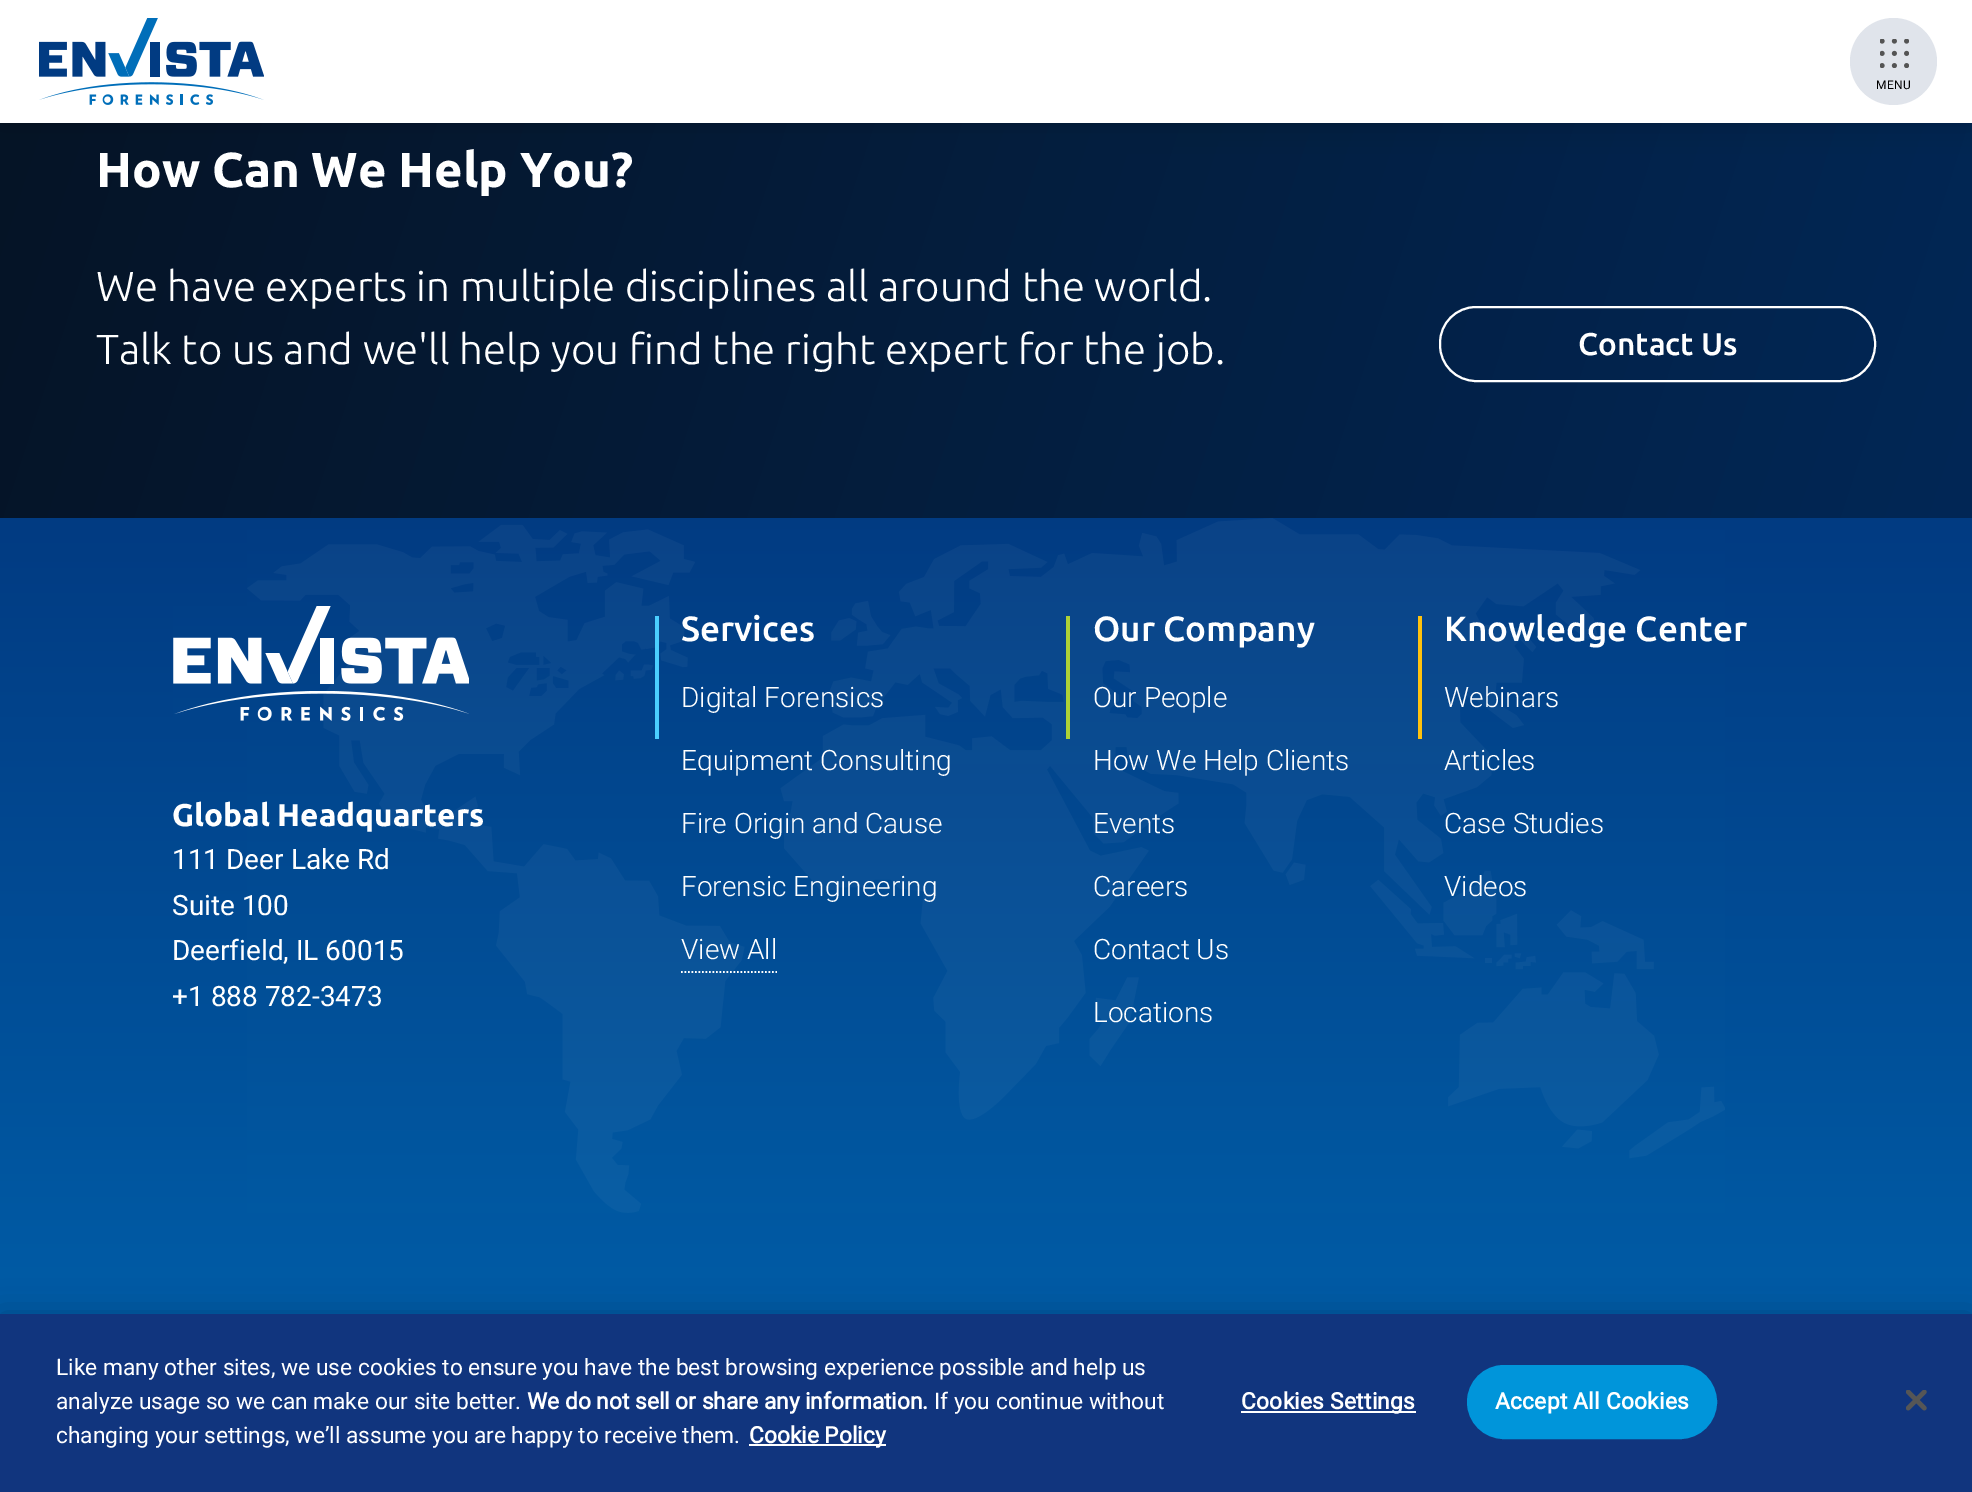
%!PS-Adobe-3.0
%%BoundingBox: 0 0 1972 1492
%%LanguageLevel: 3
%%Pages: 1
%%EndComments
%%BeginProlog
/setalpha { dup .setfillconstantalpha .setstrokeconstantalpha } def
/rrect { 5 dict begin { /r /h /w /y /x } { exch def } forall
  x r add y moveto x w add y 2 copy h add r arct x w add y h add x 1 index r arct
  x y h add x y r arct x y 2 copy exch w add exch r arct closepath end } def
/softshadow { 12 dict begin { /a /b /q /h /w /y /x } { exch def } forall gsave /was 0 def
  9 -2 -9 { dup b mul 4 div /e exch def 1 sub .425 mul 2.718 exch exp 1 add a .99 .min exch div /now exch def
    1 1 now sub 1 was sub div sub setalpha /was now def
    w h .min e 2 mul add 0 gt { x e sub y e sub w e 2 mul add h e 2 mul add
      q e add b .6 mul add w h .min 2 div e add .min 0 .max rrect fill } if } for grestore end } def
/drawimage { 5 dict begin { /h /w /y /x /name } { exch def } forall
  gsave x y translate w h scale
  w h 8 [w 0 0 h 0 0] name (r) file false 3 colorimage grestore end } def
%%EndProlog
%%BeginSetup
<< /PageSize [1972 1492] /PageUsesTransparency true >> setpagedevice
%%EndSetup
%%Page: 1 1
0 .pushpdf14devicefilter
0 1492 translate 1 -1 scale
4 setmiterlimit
1 setgray
0 0 1972 1492 rectfill
gsave newpath 0 123 moveto 1972 123 lineto 1972 518 lineto 0 518 lineto closepath clip newpath
<< /ShadingType 2 /ColorSpace /DeviceRGB /Coords [28 -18 1944 604] /Extend [true true] /Function << /FunctionType 2 /Domain [0 1] /C0 [0.024 0.078 0.149] /C1 [0.004 0.153 0.337] /N 1 >> >> shfill grestore
0 setgray
0 0 1972 123 0 14 0.2 softshadow
1 setgray
0 0 1972 123 rectfill
(images/1.raw) 39 18 225 87 drawimage
0.878 0.894 0.922 setrgbcolor
newpath 1893.5 61.5 43.5 0 360 arc closepath fill
(images/2.raw) 1880 39 29 29 drawimage
1 setgray
2 setlinewidth
1440 307 435 74 36 rrect stroke
gsave newpath 0 518 moveto 1972 518 lineto 1972 1314 lineto 0 1314 lineto closepath clip newpath
<< /ShadingType 2 /ColorSpace /DeviceRGB /Coords [986 518 986 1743] /Extend [true true] /Function << /FunctionType 2 /Domain [0 1] /C0 [0.004 0.231 0.51] /C1 [0 0.431 0.725] /N 1 >> >> shfill grestore
(images/3.raw) 247 518 1478 695 drawimage
(images/4.raw) 173 606 296 115 drawimage
0.29 0.808 1 setrgbcolor
655 616 4 123 rectfill
1 setgray
1.8 setlinewidth
[1.75 1.75] 0 setdash
newpath 681 972 moveto 777 972 lineto stroke
0.682 0.82 0.212 setrgbcolor
1066 616 4 123 rectfill
1 0.761 0.055 setrgbcolor
1418 616 4 123 rectfill
0 setgray
0 1314 1972 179 0 16 0.2 softshadow
0.067 0.208 0.494 setrgbcolor
0 1314 1972 178 rectfill
1 setgray
749 1444 137 2 rectfill
1241 1411 175 2 rectfill
0 0.584 0.855 setrgbcolor
1468 1366 248 72 36 rrect gsave fill grestore
2 setlinewidth
[] 0 setdash
stroke
(images/5.raw) 1906 1390 21 21 drawimage
/Roboto-Regular [12 0 0 -12 0 0] selectfont
0 setgray
1876 89 moveto 0.5 0 (MENU) ashow
/Ubuntu-Bold [49 0 0 -49 0 0] selectfont
1 setgray
96 187 moveto (How Can We Help You?) show
/Ubuntu-Light [42 0 0 -42 0 0] selectfont
96 301 moveto (We have experts in multiple disciplines all around the world.) show
96 364 moveto (Talk to us and we'll help you find the right expert for the job.) show
/Ubuntu-Medium [31.5 0 0 -31.5 0 0] selectfont
1578 355 moveto (Contact Us) show
/Ubuntu-Bold [31.5 0 0 -31.5 0 0] selectfont
172 826 moveto (Global Headquarters) show
/Roboto-Regular [28 0 0 -28 0 0] selectfont
172 869 moveto (111 Deer Lake Rd) show
172 915 moveto (Suite 100) show
172 960 moveto (Deerfield, IL 60015) show
172 1006 moveto (+1 888 782-3473) show
/Ubuntu-Medium [35 0 0 -35 0 0] selectfont
681 641 moveto (Services) show
/Roboto-Light [28 0 0 -28 0 0] selectfont
681 707 moveto (Digital Forensics) show
681 770 moveto (Equipment Consulting) show
681 833 moveto (Fire Origin and Cause) show
681 896 moveto (Forensic Engineering) show
681 959 moveto (View All) show
/Ubuntu-Medium [35 0 0 -35 0 0] selectfont
1093 641 moveto (Our Company) show
/Roboto-Light [28 0 0 -28 0 0] selectfont
1093 707 moveto (Our People) show
1093 770 moveto (How We Help Clients) show
1093 833 moveto (Events) show
1093 896 moveto (Careers) show
1093 959 moveto (Contact Us) show
1093 1022 moveto (Locations) show
/Ubuntu-Medium [35 0 0 -35 0 0] selectfont
1444 641 moveto (Knowledge Center) show
/Roboto-Light [28 0 0 -28 0 0] selectfont
1444 707 moveto (Webinars) show
1444 770 moveto (Articles) show
1444 833 moveto (Case Studies) show
1444 896 moveto (Videos) show
/Roboto-Regular [22.75 0 0 -22.75 0 0] selectfont
56 1375 moveto (Like many other sites, we use cookies to ensure you have the best browsing experience possible and help us) show
56 1409 moveto (analyze usage so we can make our site better.) show
/Roboto-Bold [22.75 0 0 -22.75 0 0] selectfont
527 1409 moveto (We do not sell or share any information.) show
/Roboto-Regular [22.75 0 0 -22.75 0 0] selectfont
934 1409 moveto (If you continue without) show
56 1443 moveto (changing your settings, we’ll assume you are happy to receive them.) show
/Roboto-Bold [22.75 0 0 -22.75 0 0] selectfont
749 1443 moveto (Cookie Policy) show
1241 1409 moveto 0.25 0 (Cookies Settings) ashow
1495 1409 moveto 0.25 0 (Accept All Cookies) ashow
.poppdf14devicefilter showpage
%%EOF
